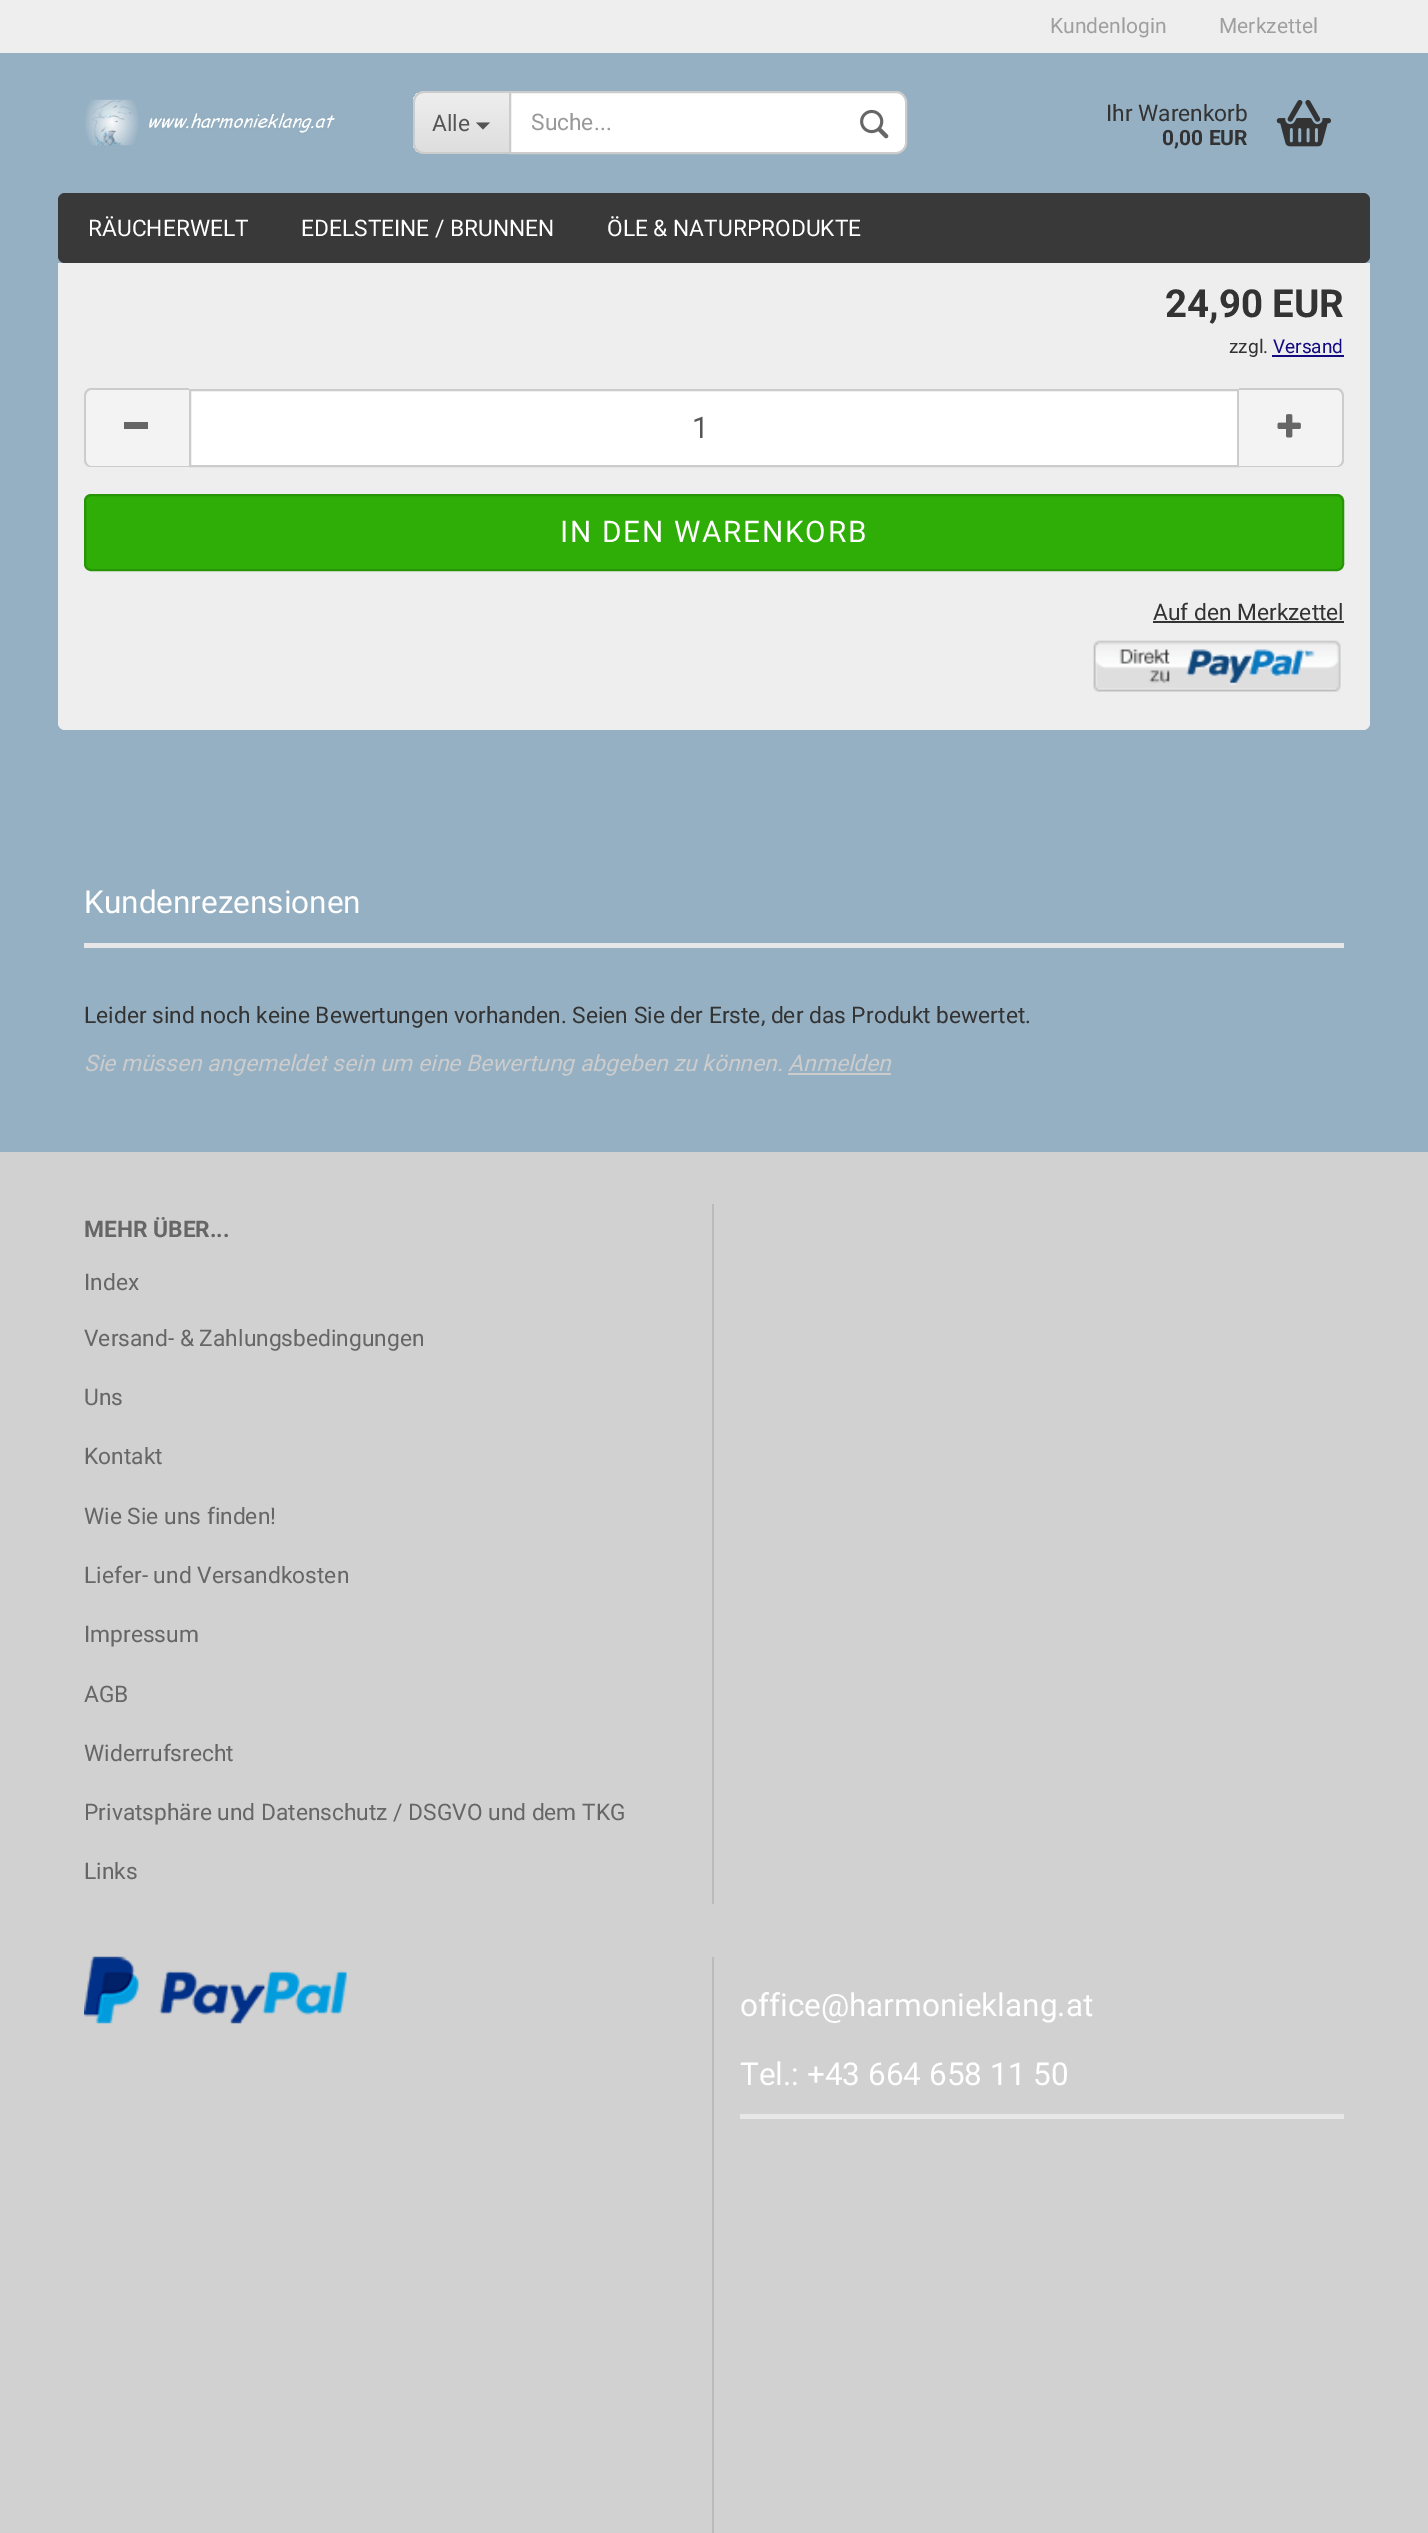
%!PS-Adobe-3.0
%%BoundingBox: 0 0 1428 2533
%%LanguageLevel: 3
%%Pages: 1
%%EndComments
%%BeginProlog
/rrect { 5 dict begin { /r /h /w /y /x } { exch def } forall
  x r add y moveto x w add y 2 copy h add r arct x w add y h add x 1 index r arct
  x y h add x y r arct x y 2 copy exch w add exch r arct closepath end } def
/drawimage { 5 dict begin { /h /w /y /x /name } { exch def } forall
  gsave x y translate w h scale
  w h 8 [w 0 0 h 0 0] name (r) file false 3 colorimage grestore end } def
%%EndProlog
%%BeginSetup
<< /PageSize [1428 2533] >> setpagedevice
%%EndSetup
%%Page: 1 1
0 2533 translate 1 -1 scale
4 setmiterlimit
0.584 0.69 0.765 setrgbcolor
0 0 1428 2533 rectfill
0.933 setgray
58 123 1312 607 7 rrect fill
0.584 0.69 0.765 setrgbcolor
58 123 1312 140 rectfill
0.933 setgray
0 0 1428 53 rectfill
(images/1.raw) 85 99 250 47 drawimage
gsave
newpath 424 91 moveto 509 91 lineto 509 154 lineto 424 154 lineto 418 154 413 149 413 143 curveto 413 102 lineto 413 96 418 91 424 91 curveto closepath clip newpath
gsave newpath 413 93 moveto 509 93 lineto 509 152 lineto 413 152 lineto closepath clip newpath
<< /ShadingType 2 /ColorSpace /DeviceRGB /Coords [462 93 462 152] /Extend [true true] /Function << /FunctionType 2 /Domain [0 1] /C0 [0.933 0.933 0.933] /C1 [0.871 0.871 0.871] /N 1 >> >> shfill grestore
grestore
0.8 setgray
newpath 424 91 moveto 509 91 lineto 509 154 lineto 424 154 lineto 418 154 413 149 413 144 curveto 413 102 lineto 413 96 418 91 424 91 curveto closepath 424 93 moveto 509 93 lineto 509 152 lineto 424 152 lineto 419 152 415 148 415 144 curveto 415 102 lineto 415 97 419 93 424 93 curveto closepath eofill
0.333 setgray
newpath 476 122.5 moveto 490 122.5 lineto 483 129.5 lineto closepath fill
1 setgray
newpath 510 92 moveto 896 92 lineto 901.5 92 906 96.5 906 102 curveto 906 143 lineto 906 148.5 901.5 153 896 153 curveto 510 153 lineto closepath gsave fill grestore
0.8 setgray
2 setlinewidth
stroke
(images/2.raw) 860 109 29 30 drawimage
(images/3.raw) 1276 100 55 47 drawimage
0.224 setgray
58 193 1312 70 7 rrect fill
0.078 0.039 0.502 setrgbcolor
1272 355 72 2 rectfill
0.953 setgray
newpath 91 389 moveto 189 389 lineto 189 467 lineto 91 467 lineto 87 467 84 464 84 460 curveto 84 396 lineto 84 392 87 389 91 389 curveto closepath fill
0.8 setgray
newpath 91 388 moveto 189 388 lineto 189 467 lineto 91 467 lineto 87 467 84 464 84 460 curveto 84 396 lineto 84 392 87 388 91 388 curveto closepath 91 390 moveto 189 390 lineto 189 466 lineto 91 466 lineto 88 466 86 463 86 460 curveto 86 396 lineto 86 393 88 390 91 390 curveto closepath eofill
0.4 setgray
124 422 24 7 rectfill
1 setgray
newpath 190 390 moveto 1238 390 lineto 1238 466 lineto 190 466 lineto closepath gsave fill grestore
0.8 setgray
stroke
0.953 setgray
newpath 1239 389 moveto 1337 389 lineto 1341 389 1344 392 1344 396 curveto 1344 460 lineto 1344 464 1341 467 1337 467 curveto 1239 467 lineto closepath fill
0.8 setgray
newpath 1239 388 moveto 1337 388 lineto 1341 388 1344 392 1344 396 curveto 1344 460 lineto 1344 464 1341 467 1337 467 curveto 1239 467 lineto closepath 1239 390 moveto 1337 390 lineto 1340 390 1342 393 1342 396 curveto 1342 460 lineto 1342 463 1340 466 1337 466 curveto 1239 466 lineto closepath eofill
(images/4.raw) 1277 414 24 24 drawimage
0.18 0.682 0.024 setrgbcolor
85 495 1258 75 6 rrect gsave fill grestore
0.153 0.584 0.02 setrgbcolor
stroke
0.2 setgray
1153 621 191 2 rectfill
(images/5.raw) 1093 640 248 52 drawimage
0.906 setgray
84 943 1260 5 rectfill
0.8 setgray
788 1073 103 2 rectfill
0.82 setgray
0 1152 1428 1381 rectfill
0.733 setgray
712 1204 2 700 rectfill
712 1957 2 576 rectfill
(images/6.raw) 84 1956 263 68 drawimage
0.906 setgray
740 2114 604 5 rectfill
/Roboto-Regular [21 0 0 -21 0 0] selectfont
0.624 setgray
1050 33 moveto (Kundenlogin) show
1219 33 moveto (Merkzettel) show
/Roboto-Regular [22.75 0 0 -22.75 0 0] selectfont
0.333 setgray
432 131 moveto (Alle) show
0.6 setgray
531 130 moveto (Suche...) show
0.2 setgray
1106 121 moveto (Ihr Warenkorb) show
/Roboto-Bold [21 0 0 -21 0 0] selectfont
1162 145 moveto (0,00 EUR) show
/Roboto-Regular [22.75 0 0 -22.75 0 0] selectfont
1 setgray
88 236 moveto (RÄUCHERWELT) show
301 236 moveto (EDELSTEINE / BRUNNEN) show
607 236 moveto (ÖLE & NATURPRODUKTE) show
/Roboto-Bold [38.5 0 0 -38.5 0 0] selectfont
0.2 setgray
1165 317 moveto (24,90 EUR) show
/Roboto-Regular [19 0 0 -19 0 0] selectfont
1229 353 moveto (zzgl.) show
0.078 0.039 0.502 setrgbcolor
1273 353 moveto (Versand) show
/Roboto-Regular [29.75 0 0 -29.75 0 0] selectfont
0.333 setgray
692 438 moveto (1) show
1 setgray
560 542 moveto 1.75 0 (IN DEN WARENKORB) ashow
/Roboto-Regular [22.75 0 0 -22.75 0 0] selectfont
0.2 setgray
1153 620 moveto (Auf den Merkzettel) show
/Roboto-Regular [31.5 0 0 -31.5 0 0] selectfont
1 setgray
84 913 moveto (Kundenrezensionen) show
/Roboto-Regular [22.75 0 0 -22.75 0 0] selectfont
0.2 setgray
84 1023 moveto (Leider sind noch keine Bewertungen vorhanden. Seien Sie der Erste, der das Produkt bewertet.) show
/Roboto-Italic [22.75 0 0 -22.75 0 0] selectfont
0.8 setgray
84 1071 moveto (Sie müssen angemeldet sein um eine Bewertung abgeben zu können. Anmelden) show
/Roboto-Bold [22.75 0 0 -22.75 0 0] selectfont
0.4 setgray
84 1237 moveto (MEHR ÜBER...) show
/Roboto-Regular [22.75 0 0 -22.75 0 0] selectfont
84 1290 moveto (Index) show
84 1346 moveto (Versand- & Zahlungsbedingungen) show
84 1405 moveto (Uns) show
84 1464 moveto (Kontakt) show
84 1524 moveto (Wie Sie uns finden!) show
84 1583 moveto (Liefer- und Versandkosten) show
84 1642 moveto (Impressum) show
84 1702 moveto (AGB) show
84 1761 moveto (Widerrufsrecht) show
84 1820 moveto (Privatsphäre und Datenschutz / DSGVO und dem TKG) show
84 1879 moveto (Links) show
/Roboto-Regular [31.5 0 0 -31.5 0 0] selectfont
1 setgray
740 2016 moveto (office@harmonieklang.at) show
740 2085 moveto (Tel.: +43 664 658 11 50) show
showpage
%%EOF
